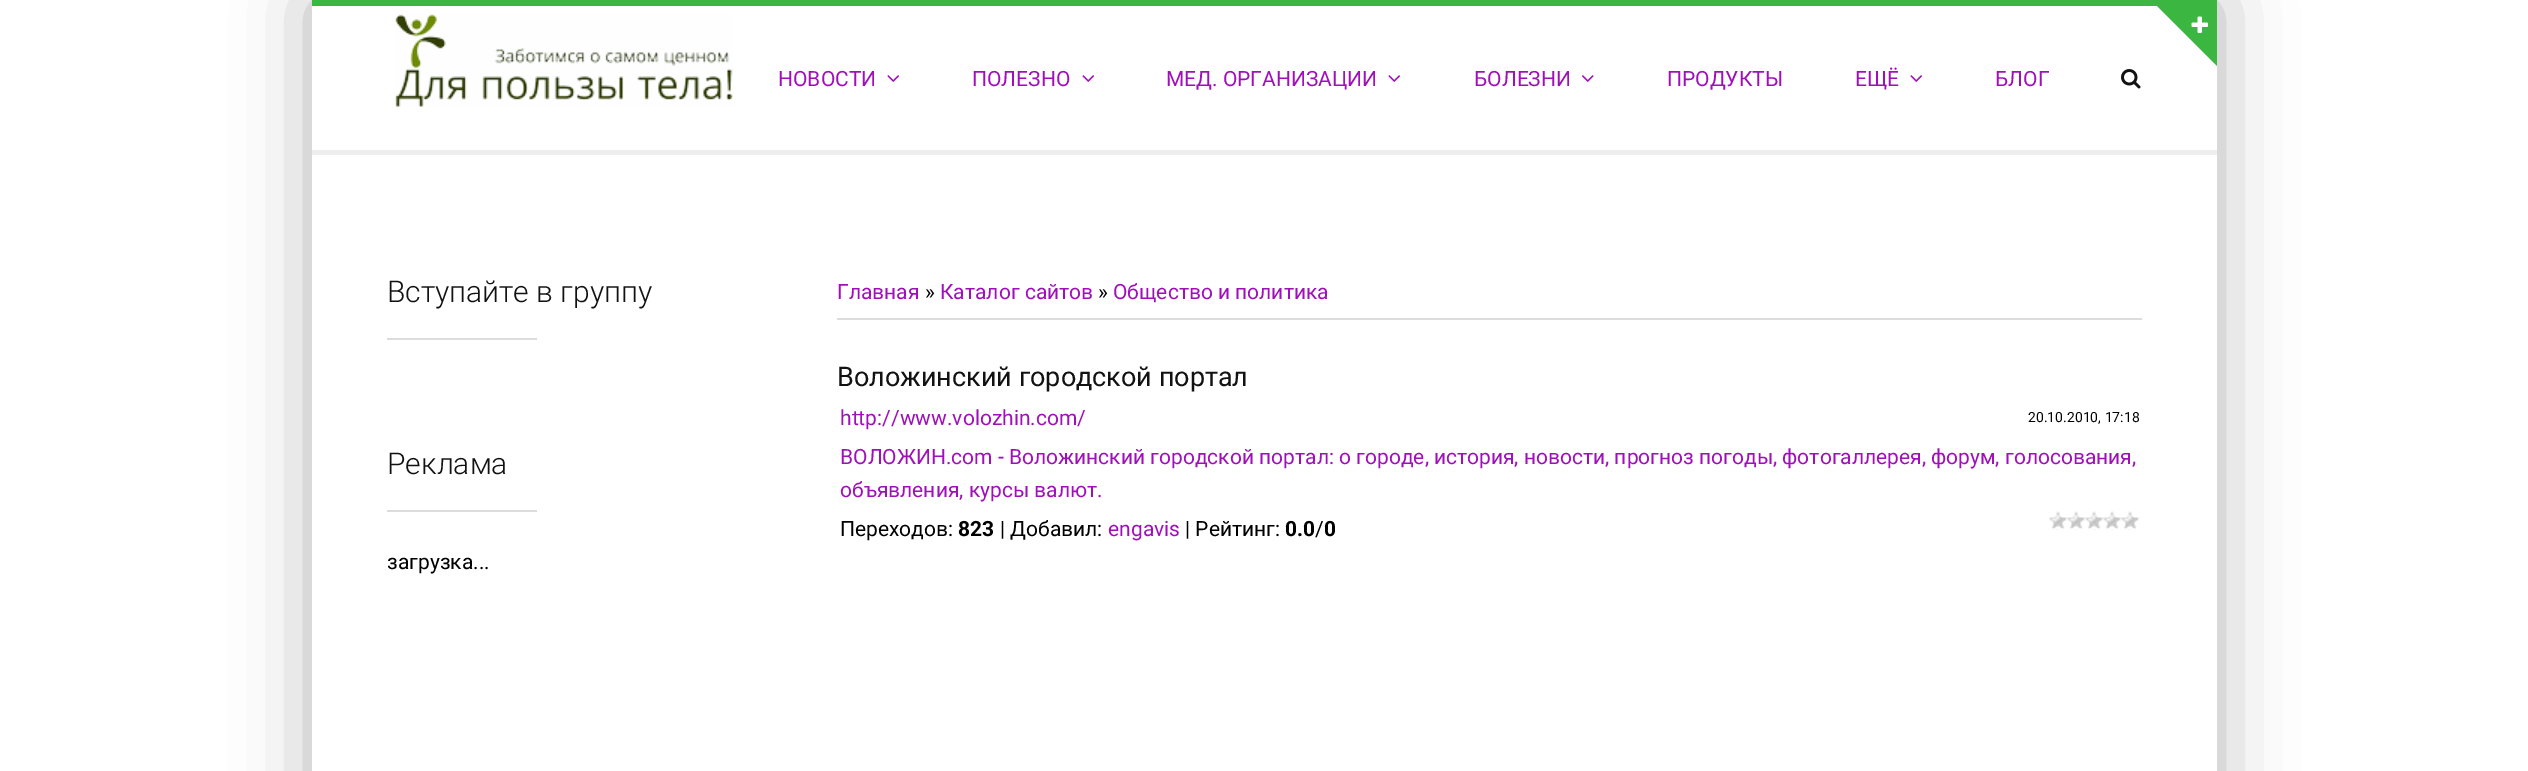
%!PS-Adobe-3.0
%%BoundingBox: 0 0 2528 771
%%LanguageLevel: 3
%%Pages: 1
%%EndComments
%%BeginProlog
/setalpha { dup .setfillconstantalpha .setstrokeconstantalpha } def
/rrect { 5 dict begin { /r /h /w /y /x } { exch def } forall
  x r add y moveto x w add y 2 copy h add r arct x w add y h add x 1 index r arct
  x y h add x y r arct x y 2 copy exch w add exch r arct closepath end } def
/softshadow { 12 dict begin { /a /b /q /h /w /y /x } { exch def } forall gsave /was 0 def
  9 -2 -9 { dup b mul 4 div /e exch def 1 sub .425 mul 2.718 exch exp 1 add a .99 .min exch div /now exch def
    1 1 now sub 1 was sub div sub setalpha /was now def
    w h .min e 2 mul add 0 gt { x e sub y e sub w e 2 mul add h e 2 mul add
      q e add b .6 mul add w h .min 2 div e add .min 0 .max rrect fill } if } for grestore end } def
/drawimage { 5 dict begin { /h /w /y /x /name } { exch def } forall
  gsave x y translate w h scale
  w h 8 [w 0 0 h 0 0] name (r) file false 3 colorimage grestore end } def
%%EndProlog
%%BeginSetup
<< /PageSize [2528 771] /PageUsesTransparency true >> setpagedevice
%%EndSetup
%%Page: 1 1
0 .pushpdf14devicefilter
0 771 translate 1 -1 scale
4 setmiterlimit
1 setgray
0 0 2528 771 rectfill
gsave
newpath 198 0 moveto 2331 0 lineto 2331 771 lineto 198 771 lineto closepath 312 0 moveto 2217 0 lineto 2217 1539 lineto 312 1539 lineto closepath eoclip newpath
0 setgray
312 0 1905 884 0 37.5 0.3 softshadow
grestore
0.231 0.714 0.255 setrgbcolor
312 0 1905 6 rectfill
newpath 2157 6 moveto 2217 6 lineto 2217 66 lineto closepath fill
(images/1.raw) 2191 16 17 17 drawimage
(images/2.raw) 395 14 338 93 drawimage
(images/3.raw) 887 75 12 7 drawimage
(images/3.raw) 1082 75 12 7 drawimage
(images/3.raw) 1388 75 12 7 drawimage
(images/4.raw) 1582 75 12 7 drawimage
(images/3.raw) 1910 75 12 7 drawimage
(images/5.raw) 2121 69 20 20 drawimage
0.933 setgray
312 150 1905 5 rectfill
0.863 setgray
387 338 150 2 rectfill
387 510 150 2 rectfill
837 318 1305 2 rectfill
(images/6.raw) 2049 511 90 19 drawimage
/Roboto-Regular [21 0 0 -21 0 0] selectfont
0.627 0.059 0.729 setrgbcolor
778 86 moveto (НОВОСТИ) show
972 86 moveto (ПОЛЕЗНО) show
1166 86 moveto (МЕД. ОРГАНИЗАЦИИ) show
1474 86 moveto (БОЛЕЗНИ) show
1667 86 moveto (ПРОДУКТЫ) show
1855 86 moveto (ЕЩЁ) show
1995 86 moveto (БЛОГ) show
/Roboto-Light [30 0 0 -30 0 0] selectfont
0.071 setgray
387 302 moveto (Вступайте в группу) show
387 474 moveto (Реклама) show
/Roboto-Regular [21 0 0 -21 0 0] selectfont
0 setgray
387 569 moveto (загрузка...) show
0.627 0.059 0.729 setrgbcolor
837 299 moveto (Главная) show
0 setgray
925 299 moveto (») show
0.627 0.059 0.729 setrgbcolor
940 299 moveto (Каталог сайтов) show
0 setgray
1098 299 moveto (») show
0.627 0.059 0.729 setrgbcolor
1113 299 moveto (Общество и политика) show
/Roboto-Regular [27 0 0 -27 0 0] selectfont
0.071 setgray
837 386 moveto (Воложинский городской портал) show
/Roboto-Regular [21 0 0 -21 0 0] selectfont
0.627 0.059 0.729 setrgbcolor
840 425 moveto (http://www.volozhin.com/) show
/Roboto-Regular [14 0 0 -14 0 0] selectfont
0 setgray
2028 422 moveto (20.10.2010, 17:18) show
/Roboto-Regular [21 0 0 -21 0 0] selectfont
0.627 0.059 0.729 setrgbcolor
840 464 moveto (ВОЛОЖИН.com - Воложинский городской портал: о городе, история, новости, прогноз погоды, фотогаллерея, форум, голосования,) show
840 497 moveto (объявления, курсы валют.) show
0 setgray
840 536 moveto (Переходов:) show
/Roboto-Bold [21 0 0 -21 0 0] selectfont
958 536 moveto (823) show
/Roboto-Regular [21 0 0 -21 0 0] selectfont
1000 536 moveto (| Добавил:) show
0.627 0.059 0.729 setrgbcolor
1108 536 moveto (engavis) show
0 setgray
1185 536 moveto (| Рейтинг:) show
/Roboto-Bold [21 0 0 -21 0 0] selectfont
1285 536 moveto (0.0) show
/Roboto-Regular [21 0 0 -21 0 0] selectfont
1315 536 moveto (/) show
/Roboto-Bold [21 0 0 -21 0 0] selectfont
1324 536 moveto (0) show
.poppdf14devicefilter showpage
%%EOF
